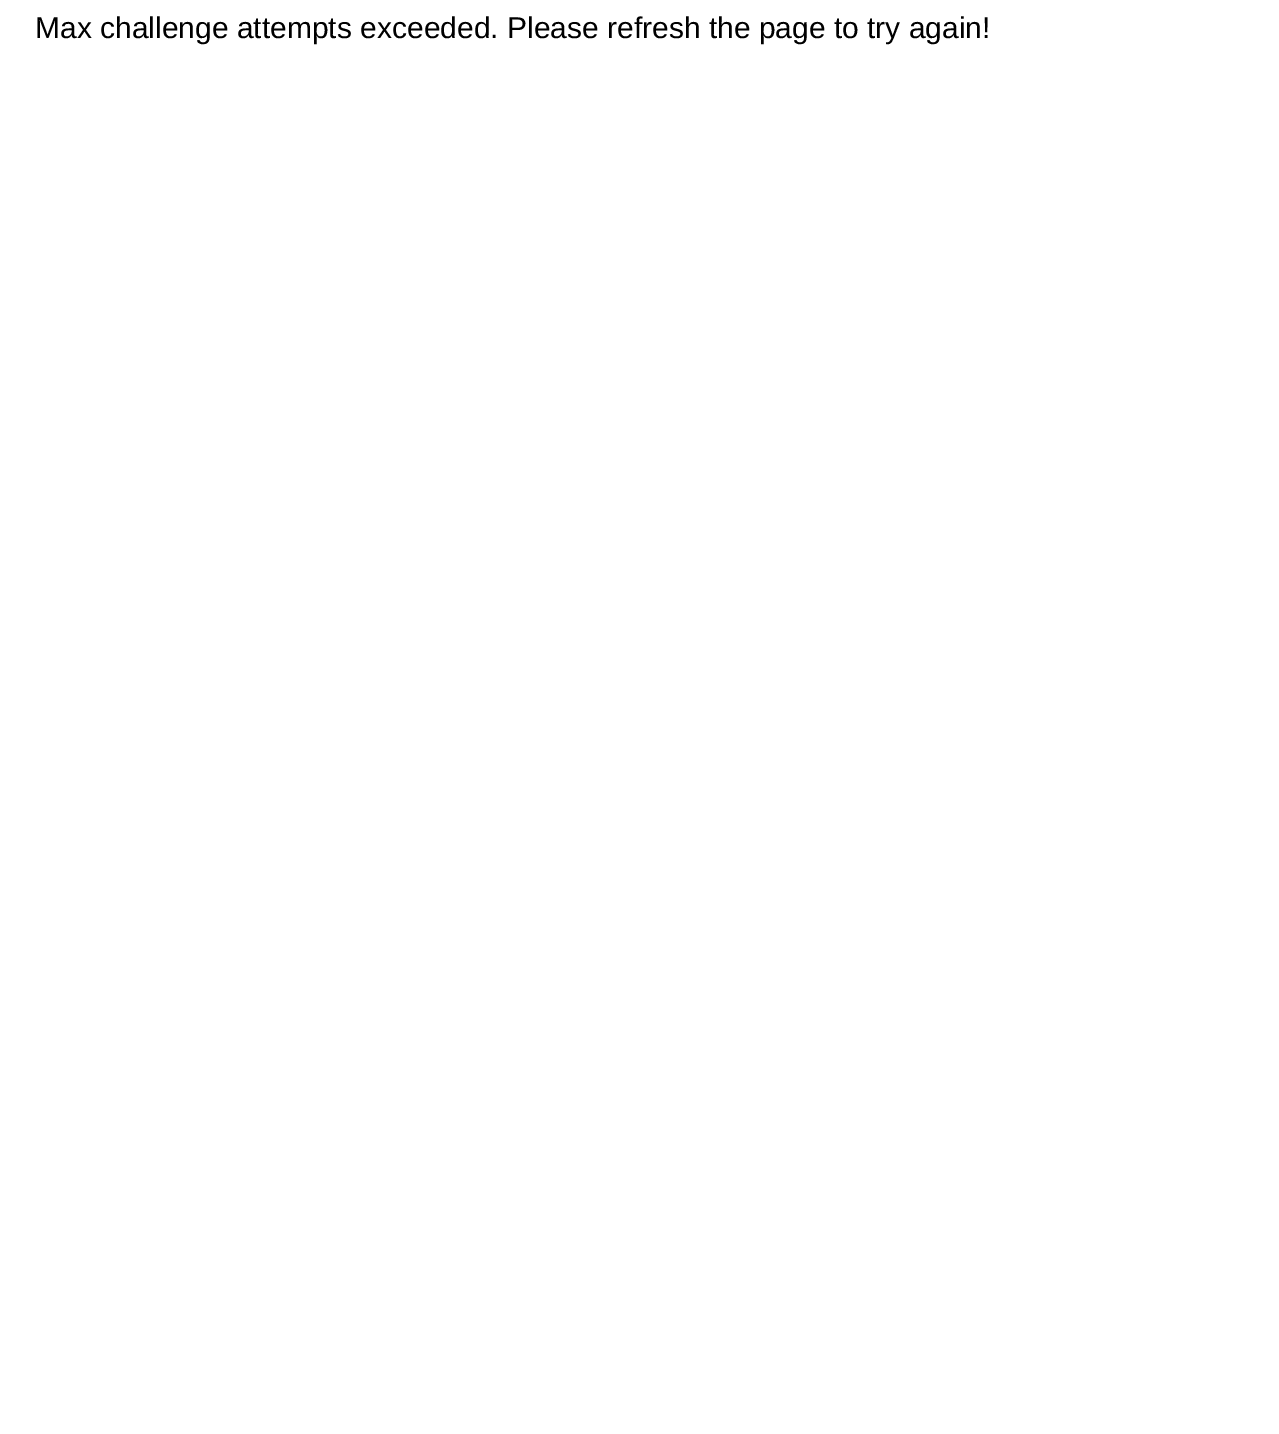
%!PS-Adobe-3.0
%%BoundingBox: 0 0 1279 1434
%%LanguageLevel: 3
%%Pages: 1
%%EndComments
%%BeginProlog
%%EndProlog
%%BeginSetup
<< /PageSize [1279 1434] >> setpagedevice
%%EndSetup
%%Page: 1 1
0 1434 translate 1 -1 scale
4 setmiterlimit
1 setgray
0 0 1279 1434 rectfill
/LiberationSans-Regular [30 0 0 -30 0 0] selectfont
0 setgray
35 38 moveto (Max challenge attempts exceeded. Please refresh the page to try again!) show
showpage
%%EOF
